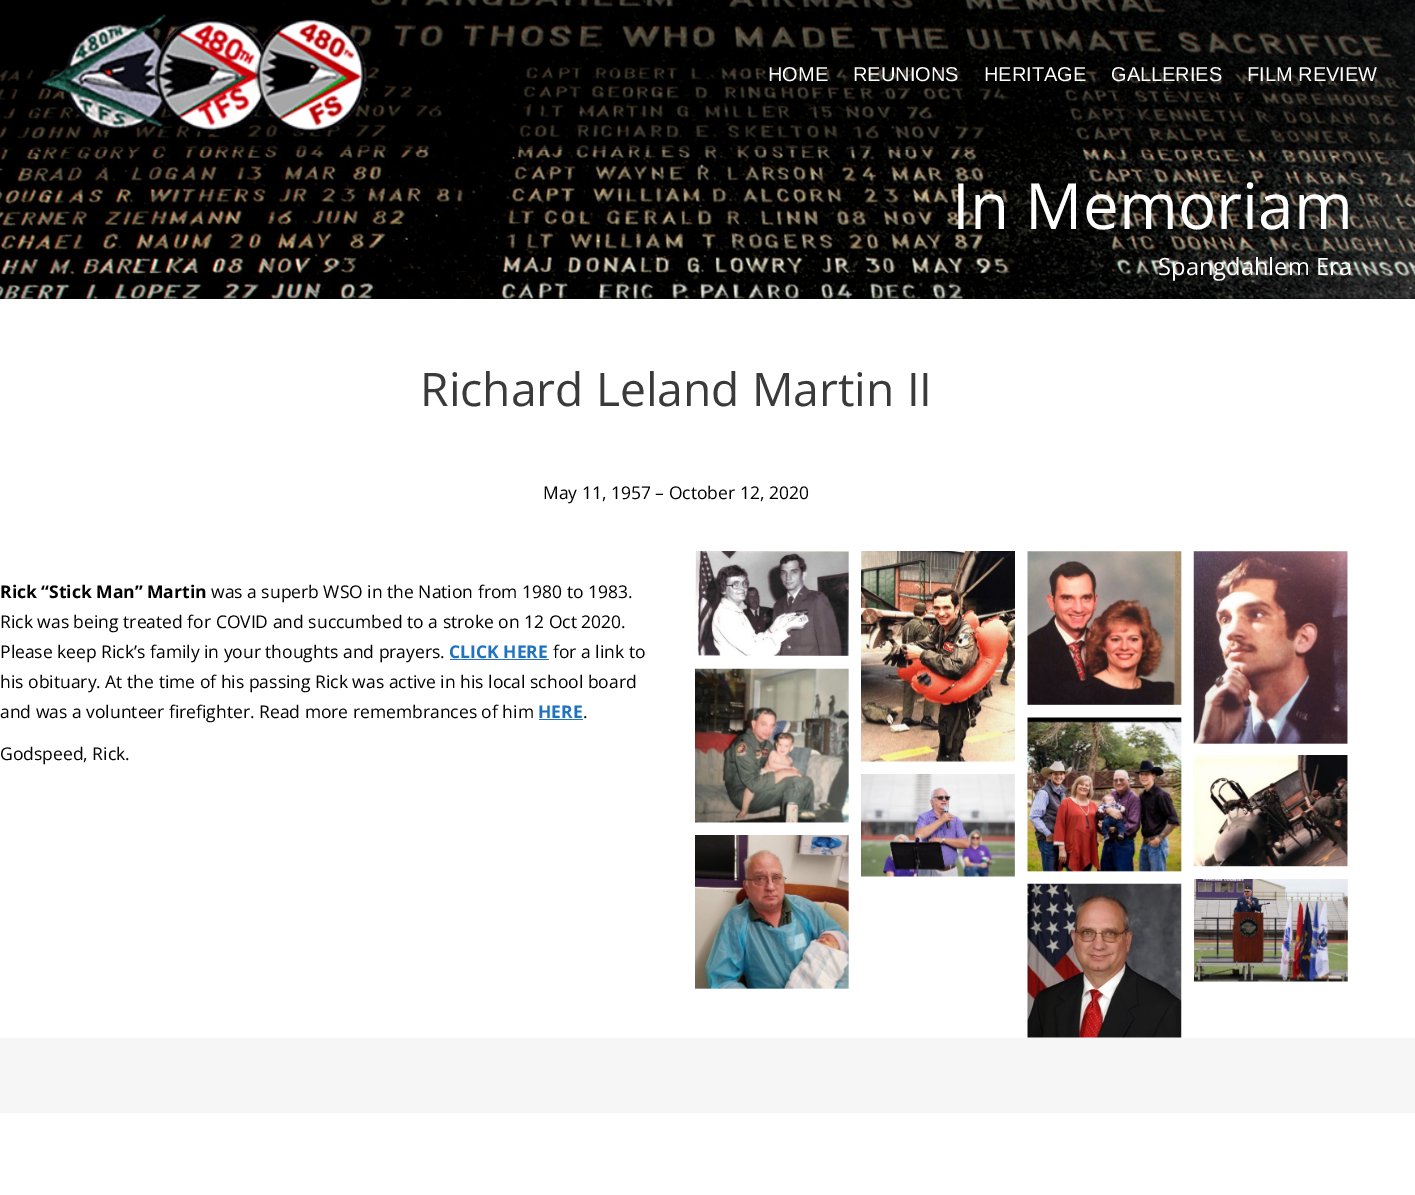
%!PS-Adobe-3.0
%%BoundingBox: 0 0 1415 1195
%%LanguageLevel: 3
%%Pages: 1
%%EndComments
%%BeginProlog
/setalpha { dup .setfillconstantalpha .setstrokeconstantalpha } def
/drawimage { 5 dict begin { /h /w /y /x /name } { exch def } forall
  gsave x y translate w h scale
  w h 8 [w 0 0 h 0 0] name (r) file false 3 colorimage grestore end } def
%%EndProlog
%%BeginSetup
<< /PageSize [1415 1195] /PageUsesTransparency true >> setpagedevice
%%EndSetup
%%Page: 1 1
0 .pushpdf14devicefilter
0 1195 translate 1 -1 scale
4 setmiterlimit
1 setgray
0 0 1415 1195 rectfill
(images/2.raw) 0 0 1415 299 drawimage
0.5 setalpha
0 setgray
0 0 1415 150 rectfill
1 setalpha
(images/1.raw) 41 13 326 121 drawimage
0.118 0.451 0.745 setrgbcolor
450 659 99 1 rectfill
539 719 44 1 rectfill
(images/3.raw) 695 551 154 105 drawimage
(images/4.raw) 861 551 154 211 drawimage
(images/5.raw) 1027 551 155 154 drawimage
(images/6.raw) 1193 551 155 193 drawimage
(images/7.raw) 695 668 154 155 drawimage
(images/8.raw) 861 774 154 103 drawimage
(images/9.raw) 1027 717 155 155 drawimage
(images/10.raw) 1193 755 155 112 drawimage
(images/11.raw) 695 835 154 154 drawimage
(images/12.raw) 1027 883 155 155 drawimage
(images/13.raw) 1194 879 154 103 drawimage
0.965 setgray
0 1038 1415 75 rectfill
/LiberationSans-Regular [20 0 0 -20 0 0] selectfont
1 setgray
768 81 moveto (HOME) show
853 81 moveto (REUNIONS) show
984 81 moveto (HERITAGE) show
1111 81 moveto (GALLERIES) show
1247 81 moveto (FILM REVIEW) show
/OpenSans-Regular [63.75 0 0 -63.75 0 0] selectfont
952 229 moveto (In Memoriam) show
/OpenSans-Regular [23.75 0 0 -23.75 0 0] selectfont
1158 275 moveto (Spangdahlem Era) show
/OpenSans-Regular [46.25 0 0 -46.25 0 0] selectfont
0.227 setgray
420 406 moveto (Richard Leland Martin II) show
/OpenSans-Regular [17.5 0 0 -17.5 0 0] selectfont
0 setgray
543 499 moveto (May 11, 1957 – October 12, 2020) show
/OpenSans-Bold [17.5 0 0 -17.5 0 0] selectfont
0 598 moveto (Rick “Stick Man” Martin) show
/OpenSans-Regular [17.5 0 0 -17.5 0 0] selectfont
211 598 moveto (was a superb WSO in the Nation from 1980 to 1983.) show
0 628 moveto (Rick was being treated for COVID and succumbed to a stroke on 12 Oct 2020.) show
0 658 moveto (Please keep Rick’s family in your thoughts and prayers.) show
/OpenSans-Bold [17.5 0 0 -17.5 0 0] selectfont
0.118 0.451 0.745 setrgbcolor
449 658 moveto (CLICK HERE) show
/OpenSans-Regular [17.5 0 0 -17.5 0 0] selectfont
0 setgray
553 658 moveto (for a link to) show
0 688 moveto (his obituary. At the time of his passing Rick was active in his local school board) show
0 718 moveto (and was a volunteer firefighter. Read more remembrances of him) show
/OpenSans-Bold [17.5 0 0 -17.5 0 0] selectfont
0.118 0.451 0.745 setrgbcolor
538 718 moveto (HERE) show
/OpenSans-Regular [17.5 0 0 -17.5 0 0] selectfont
0 setgray
583 718 moveto (.) show
0 760 moveto (Godspeed, Rick.) show
.poppdf14devicefilter showpage
%%EOF
